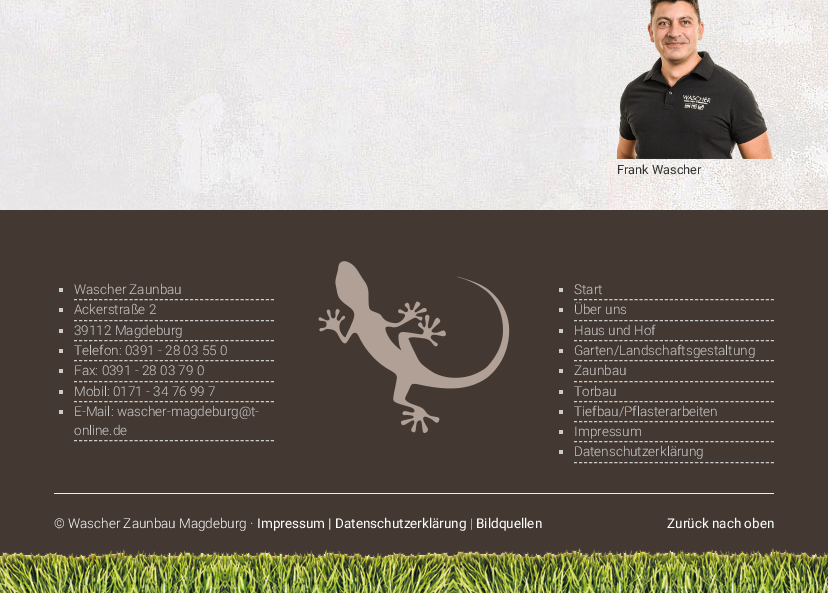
%!PS-Adobe-3.0
%%BoundingBox: 0 0 828 593
%%LanguageLevel: 3
%%Pages: 1
%%EndComments
%%BeginProlog
/drawimage { 5 dict begin { /h /w /y /x /name } { exch def } forall
  gsave x y translate w h scale
  w h 8 [w 0 0 h 0 0] name (r) file false 3 colorimage grestore end } def
%%EndProlog
%%BeginSetup
<< /PageSize [828 593] >> setpagedevice
%%EndSetup
%%Page: 1 1
0 593 translate 1 -1 scale
4 setmiterlimit
1 setgray
0 0 828 593 rectfill
(images/1.raw) 0 0 828 210 drawimage
(images/2.raw) 617 0 156 159 drawimage
0.263 0.224 0.196 setrgbcolor
0 210 828 348 rectfill
(images/3.raw) 0 548 828 45 drawimage
0.8 setgray
[3 2.05] 0 setdash
newpath 74 299.5 moveto 274 299.5 lineto stroke
59 288 4 4 rectfill
newpath 74 320.5 moveto 274 320.5 lineto stroke
59 308 4 4 rectfill
newpath 74 340.5 moveto 274 340.5 lineto stroke
59 329 4 4 rectfill
newpath 74 360.5 moveto 274 360.5 lineto stroke
59 349 4 4 rectfill
newpath 74 381.5 moveto 274 381.5 lineto stroke
59 369 4 4 rectfill
newpath 74 401.5 moveto 274 401.5 lineto stroke
59 390 4 4 rectfill
newpath 74 440.5 moveto 274 440.5 lineto stroke
59 410 4 4 rectfill
(images/4.raw) 318 261 192 172 drawimage
newpath 574 299.5 moveto 774 299.5 lineto stroke
559 288 4 4 rectfill
newpath 574 320.5 moveto 774 320.5 lineto stroke
559 308 4 4 rectfill
newpath 574 340.5 moveto 774 340.5 lineto stroke
559 329 4 4 rectfill
newpath 574 360.5 moveto 774 360.5 lineto stroke
559 349 4 4 rectfill
newpath 574 381.5 moveto 774 381.5 lineto stroke
559 369 4 4 rectfill
newpath 574 401.5 moveto 774 401.5 lineto stroke
559 390 4 4 rectfill
newpath 574 421.5 moveto 774 421.5 lineto stroke
559 410 4 4 rectfill
newpath 574 441.5 moveto 774 441.5 lineto stroke
559 430 4 4 rectfill
newpath 574 462.5 moveto 774 462.5 lineto stroke
559 450 4 4 rectfill
0.933 setgray
54 493 720 1 rectfill
/Roboto-Regular [12.75 0 0 -12.75 0 0] selectfont
0.2 setgray
617 174 moveto (Frank Wascher) show
/Roboto-Light [13.5 0 0 -13.5 0 0] selectfont
0.8 setgray
74 294 moveto (Wascher Zaunbau) show
74 314 moveto (Ackerstraße 2) show
74 335 moveto (39112 Magdeburg) show
74 355 moveto (Telefon: 0391 - 28 03 55 0) show
74 375 moveto (Fax: 0391 - 28 03 79 0) show
74 396 moveto (Mobil: 0171 - 34 76 99 7) show
74 416 moveto (E-Mail: wascher-magdeburg@t-) show
74 435 moveto (online.de) show
574 294 moveto (Start) show
574 314 moveto (Über uns) show
574 335 moveto (Haus und Hof) show
574 355 moveto (Garten/Landschaftsgestaltung) show
574 375 moveto (Zaunbau) show
574 396 moveto (Torbau) show
574 416 moveto (Tiefbau/Pflasterarbeiten) show
574 436 moveto (Impressum) show
574 456 moveto (Datenschutzerklärung) show
1 setgray
54 528 moveto (© Wascher Zaunbau Magdeburg ·) show
/Roboto-Regular [13.5 0 0 -13.5 0 0] selectfont
257 528 moveto (Impressum | Datenschutzerklärung) show
/Roboto-Light [13.5 0 0 -13.5 0 0] selectfont
470 528 moveto (|) show
/Roboto-Regular [13.5 0 0 -13.5 0 0] selectfont
476 528 moveto (Bildquellen) show
667 528 moveto (Zurück nach oben) show
showpage
%%EOF
